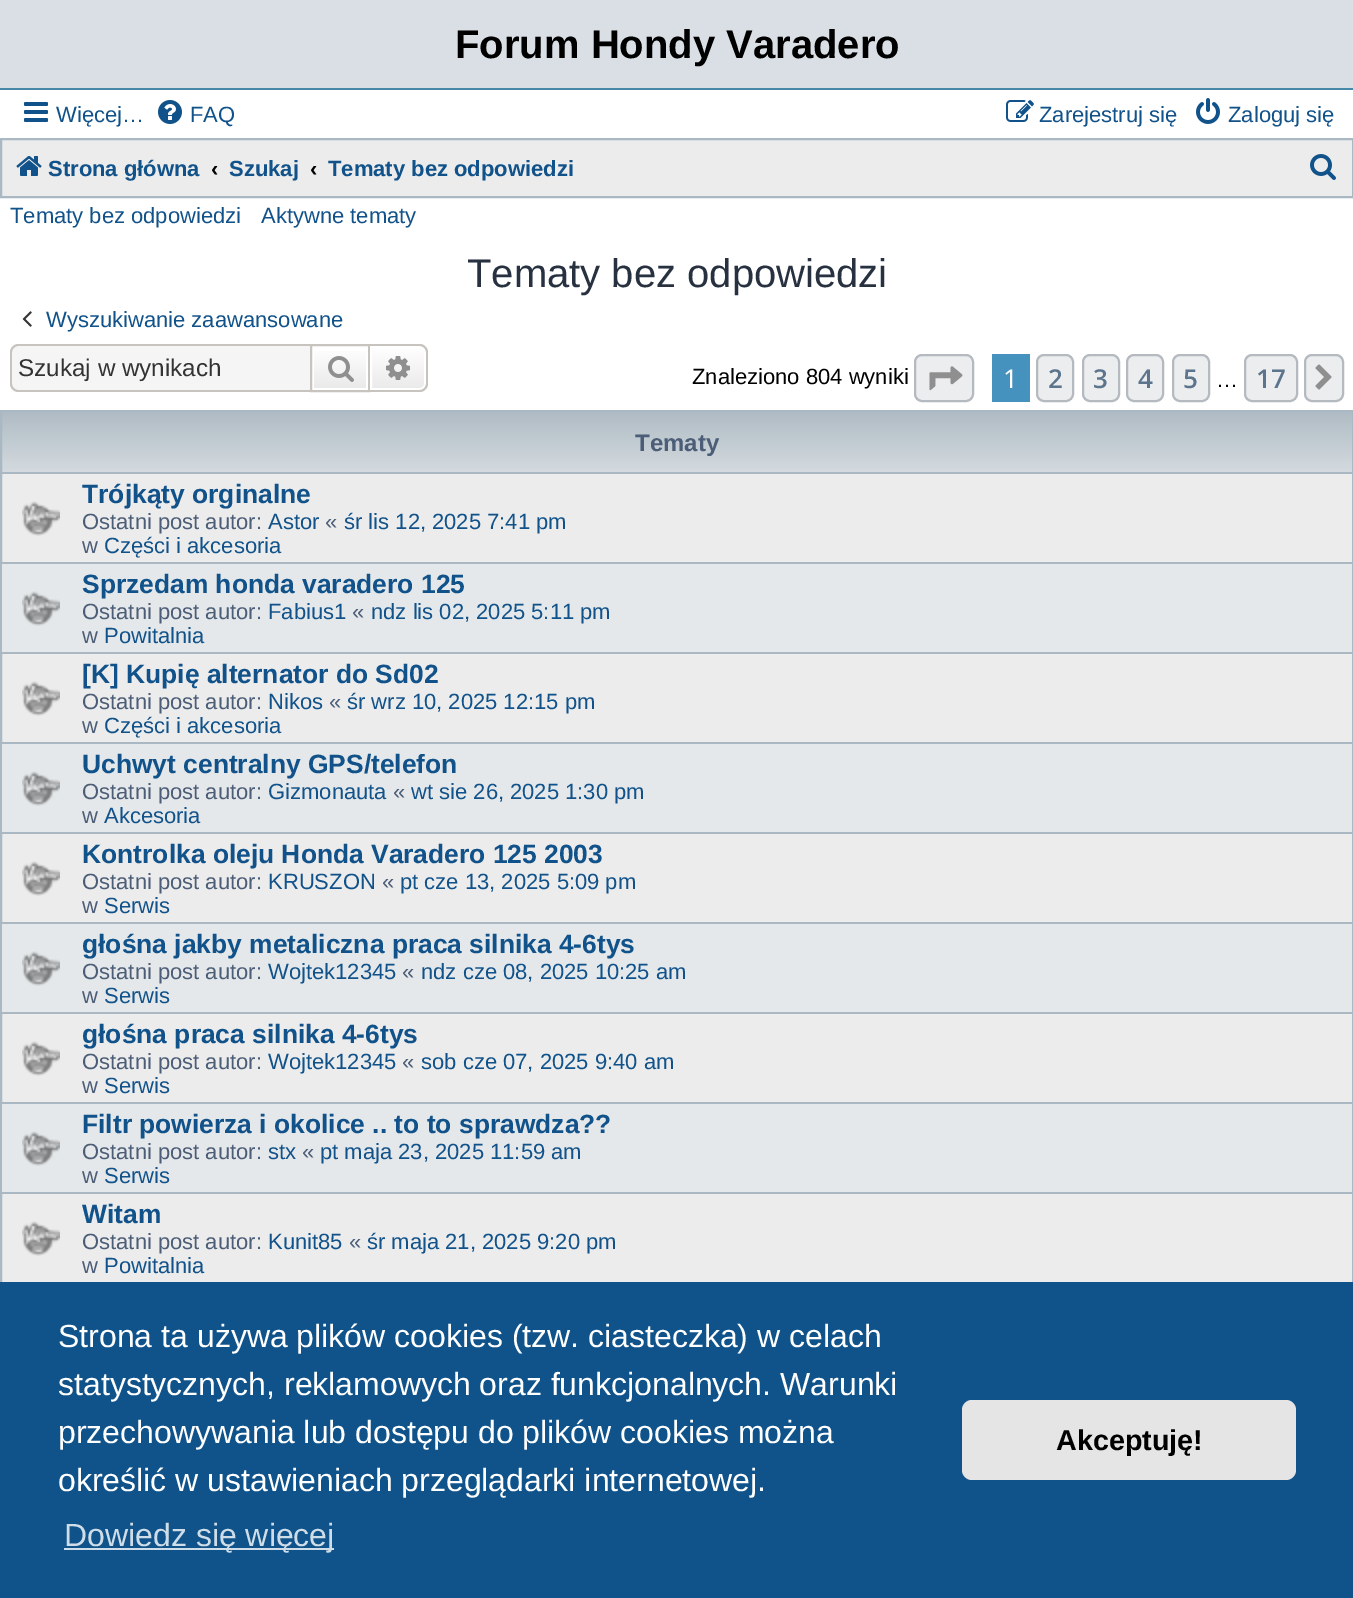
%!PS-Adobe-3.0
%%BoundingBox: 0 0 1353 1598
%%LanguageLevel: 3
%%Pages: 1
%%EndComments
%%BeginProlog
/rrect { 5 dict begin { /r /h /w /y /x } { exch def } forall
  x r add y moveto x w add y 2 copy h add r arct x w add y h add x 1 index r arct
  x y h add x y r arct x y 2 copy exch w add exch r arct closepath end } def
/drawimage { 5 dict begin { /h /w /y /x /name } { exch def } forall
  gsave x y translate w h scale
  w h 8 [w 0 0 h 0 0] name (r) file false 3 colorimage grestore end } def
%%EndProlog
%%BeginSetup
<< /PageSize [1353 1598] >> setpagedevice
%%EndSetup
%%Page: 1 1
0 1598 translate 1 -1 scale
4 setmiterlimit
1 setgray
0 0 1353 1598 rectfill
0.851 0.875 0.894 setrgbcolor
0 0 1353 88 rectfill
0.278 0.529 0.655 setrgbcolor
0 88 1353 2 rectfill
(images/1.raw) 24 102 24 20 drawimage
(images/2.raw) 158 100 24 24 drawimage
(images/3.raw) 1006 100 28 22 drawimage
(images/4.raw) 1196 98 24 26 drawimage
0.925 setgray
newpath 1 139 moveto 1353 139 lineto 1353 197 lineto 1 197 lineto closepath gsave fill grestore
0.663 0.722 0.761 setrgbcolor
2 setlinewidth
stroke
(images/5.raw) 16 156 26 20 drawimage
(images/6.raw) 1310 154 26 26 drawimage
(images/7.raw) 22 311 10 16 drawimage
0.961 setgray
newpath 18 346 moveto 310 346 lineto 310 390 lineto 18 390 lineto 14.5 390 12 387.5 12 384 curveto 12 352 lineto 12 348.5 14.5 346 18 346 curveto closepath fill
0.78 0.765 0.749 setrgbcolor
newpath 18 344 moveto 310 344 lineto 310 392 lineto 18 392 lineto 14 392 10 388 10 384 curveto 10 352 lineto 10 348 14 344 18 344 curveto closepath 18 346 moveto 310 346 lineto 310 390 lineto 18 390 lineto 15 390 12 387 12 384 curveto 12 352 lineto 12 349 15 346 18 346 curveto closepath eofill
gsave newpath 314 351 moveto 366 351 lineto 366 388 lineto 314 388 lineto closepath clip newpath
<< /ShadingType 2 /ColorSpace /DeviceRGB /Coords [340 346 340 390] /Extend [true true] /Function << /FunctionType 2 /Domain [0 1] /C0 [1 1 1] /C1 [0.914 0.914 0.914] /N 1 >> >> shfill grestore
311 345 58 46 rectstroke
(images/8.raw) 328 356 26 26 drawimage
gsave newpath 371 347 moveto 420 347 lineto 423 347 425 349 425 352 curveto 425 384 lineto 425 387 423 389 420 389 curveto 371 389 lineto closepath clip newpath
<< /ShadingType 2 /ColorSpace /DeviceRGB /Coords [398 346 398 390] /Extend [true true] /Function << /FunctionType 2 /Domain [0 1] /C0 [1 1 1] /C1 [0.914 0.914 0.914] /N 1 >> >> shfill grestore
1 setgray
newpath 371 347 moveto 420 347 lineto 423 347 425 349 425 352 curveto 425 384 lineto 425 387 423 389 420 389 curveto 371 389 lineto closepath stroke
0.78 0.765 0.749 setrgbcolor
newpath 370 344 moveto 420 344 lineto 424 344 428 348 428 352 curveto 428 384 lineto 428 388 424 392 420 392 curveto 370 392 lineto closepath 370 346 moveto 420 346 lineto 423 346 426 349 426 352 curveto 426 384 lineto 426 387 423 390 420 390 curveto 370 390 lineto closepath eofill
(images/9.raw) 386 356 24 24 drawimage
0.925 0.929 0.933 setrgbcolor
915 355 58 46 7 rrect gsave fill grestore
0.706 0.729 0.753 setrgbcolor
stroke
(images/10.raw) 929 366 34 25 drawimage
0.275 0.573 0.749 setrgbcolor
992 354 38 48 rectfill
0.925 0.929 0.933 setrgbcolor
1037 355 36 46 7 rrect gsave fill grestore
0.706 0.729 0.753 setrgbcolor
stroke
0.925 0.929 0.933 setrgbcolor
1083 355 36 46 7 rrect gsave fill grestore
0.706 0.729 0.753 setrgbcolor
stroke
0.925 0.929 0.933 setrgbcolor
1127 355 36 46 7 rrect gsave fill grestore
0.706 0.729 0.753 setrgbcolor
stroke
0.925 0.929 0.933 setrgbcolor
1173 355 36 46 7 rrect gsave fill grestore
0.706 0.729 0.753 setrgbcolor
stroke
0.925 0.929 0.933 setrgbcolor
1245 355 52 46 7 rrect gsave fill grestore
0.706 0.729 0.753 setrgbcolor
stroke
0.925 0.929 0.933 setrgbcolor
1305 355 38 46 7 rrect gsave fill grestore
0.706 0.729 0.753 setrgbcolor
stroke
(images/11.raw) 1315 364 17 26 drawimage
0.925 setgray
2 474 1350 808 rectfill
(images/12.raw) 2 412 1350 60 drawimage
0.663 0.722 0.761 setrgbcolor
1 411 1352 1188 rectstroke
2 472 1350 2 rectfill
(images/13.raw) 22 501 38 35 drawimage
0.898 0.91 0.918 setrgbcolor
2 564 1350 88 rectfill
0.663 0.722 0.761 setrgbcolor
2 562 1350 2 rectfill
(images/14.raw) 22 591 38 35 drawimage
2 652 1350 2 rectfill
(images/13.raw) 22 681 38 35 drawimage
0.898 0.91 0.918 setrgbcolor
2 744 1350 88 rectfill
0.663 0.722 0.761 setrgbcolor
2 742 1350 2 rectfill
(images/14.raw) 22 771 38 35 drawimage
2 832 1350 2 rectfill
(images/13.raw) 22 861 38 35 drawimage
0.898 0.91 0.918 setrgbcolor
2 924 1350 88 rectfill
0.663 0.722 0.761 setrgbcolor
2 922 1350 2 rectfill
(images/14.raw) 22 951 38 35 drawimage
2 1012 1350 2 rectfill
(images/13.raw) 22 1041 38 35 drawimage
0.898 0.91 0.918 setrgbcolor
2 1104 1350 88 rectfill
0.663 0.722 0.761 setrgbcolor
2 1102 1350 2 rectfill
(images/14.raw) 22 1131 38 35 drawimage
2 1192 1350 2 rectfill
(images/13.raw) 22 1221 38 35 drawimage
0.059 0.325 0.541 setrgbcolor
0 1282 1353 316 rectfill
0.812 0.867 0.91 setrgbcolor
64 1548 270 2 rectfill
0.898 setgray
962 1400 334 80 10 rrect fill
/LiberationSans-Bold [40 0 0 -40 0 0] selectfont
0 setgray
455 58 moveto (Forum Hondy Varadero) show
/LiberationSans-Regular [22 0 0 -22 0 0] selectfont
0.063 0.322 0.537 setrgbcolor
56 122 moveto (Więcej…) show
190 122 moveto (FAQ) show
1039 122 moveto (Zarejestruj się) show
1228 122 moveto (Zaloguj się) show
/LiberationSans-Bold [22 0 0 -22 0 0] selectfont
48 176 moveto (Strona główna) show
0 setgray
211 176 moveto (‹) show
0.063 0.322 0.537 setrgbcolor
229 176 moveto (Szukaj) show
0 setgray
310 176 moveto (‹) show
0.063 0.322 0.537 setrgbcolor
328 176 moveto (Tematy bez odpowiedzi) show
/LiberationSans-Regular [22 0 0 -22 0 0] selectfont
10 223 moveto (Tematy bez odpowiedzi) show
261 223 moveto (Aktywne tematy) show
/LiberationSans-Regular [40 0 0 -40 0 0] selectfont
0.157 0.192 0.247 setrgbcolor
467 287 moveto (Tematy bez odpowiedzi) show
/LiberationSans-Regular [22 0 0 -22 0 0] selectfont
0.063 0.322 0.537 setrgbcolor
46 327 moveto (Wyszukiwanie zaawansowane) show
/LiberationSans-Regular [24.25 0 0 -24.25 0 0] selectfont
0.2 setgray
18 376 moveto (Szukaj w wynikach) show
/LiberationSans-Regular [22 0 0 -22 0 0] selectfont
0 setgray
692 384 moveto (Znaleziono 804 wyniki) show
/OpenSans-Regular [26 0 0 -26 0 0] selectfont
1 setgray
1003 388 moveto (1) show
/OpenSans-SemiBold [26 0 0 -26 0 0] selectfont
0.361 0.459 0.549 setrgbcolor
1048 388 moveto (2) show
1093 388 moveto (3) show
1138 388 moveto (4) show
1183 388 moveto (5) show
/LiberationSans-Regular [22 0 0 -22 0 0] selectfont
0 setgray
1216 387 moveto (…) show
/OpenSans-SemiBold [26 0 0 -26 0 0] selectfont
0.361 0.459 0.549 setrgbcolor
1256 388 moveto (17) show
/LiberationSans-Bold [24 0 0 -24 0 0] selectfont
0.298 0.365 0.467 setrgbcolor
635 451 moveto (Tematy) show
/LiberationSans-Bold [26.4 0 0 -26.4 0 0] selectfont
0.063 0.322 0.537 setrgbcolor
82 503 moveto (Trójkąty orginalne) show
/LiberationSans-Regular [22 0 0 -22 0 0] selectfont
0.298 0.365 0.467 setrgbcolor
82 529 moveto (Ostatni post autor:) show
0.063 0.322 0.537 setrgbcolor
268 529 moveto (Astor) show
0.298 0.365 0.467 setrgbcolor
325 529 moveto («) show
0.063 0.322 0.537 setrgbcolor
344 529 moveto (śr lis 12, 2025 7:41 pm) show
0.298 0.365 0.467 setrgbcolor
82 553 moveto (w) show
0.063 0.322 0.537 setrgbcolor
104 553 moveto (Części i akcesoria) show
/LiberationSans-Bold [26.4 0 0 -26.4 0 0] selectfont
82 593 moveto (Sprzedam honda varadero 125) show
/LiberationSans-Regular [22 0 0 -22 0 0] selectfont
0.298 0.365 0.467 setrgbcolor
82 619 moveto (Ostatni post autor:) show
0.063 0.322 0.537 setrgbcolor
268 619 moveto (Fabius1) show
0.298 0.365 0.467 setrgbcolor
352 619 moveto («) show
0.063 0.322 0.537 setrgbcolor
371 619 moveto (ndz lis 02, 2025 5:11 pm) show
0.298 0.365 0.467 setrgbcolor
82 643 moveto (w) show
0.063 0.322 0.537 setrgbcolor
104 643 moveto (Powitalnia) show
/LiberationSans-Bold [26.4 0 0 -26.4 0 0] selectfont
82 683 moveto ([K] Kupię alternator do Sd02) show
/LiberationSans-Regular [22 0 0 -22 0 0] selectfont
0.298 0.365 0.467 setrgbcolor
82 709 moveto (Ostatni post autor:) show
0.063 0.322 0.537 setrgbcolor
268 709 moveto (Nikos) show
0.298 0.365 0.467 setrgbcolor
329 709 moveto («) show
0.063 0.322 0.537 setrgbcolor
347 709 moveto (śr wrz 10, 2025 12:15 pm) show
0.298 0.365 0.467 setrgbcolor
82 733 moveto (w) show
0.063 0.322 0.537 setrgbcolor
104 733 moveto (Części i akcesoria) show
/LiberationSans-Bold [26.4 0 0 -26.4 0 0] selectfont
82 773 moveto (Uchwyt centralny GPS/telefon) show
/LiberationSans-Regular [22 0 0 -22 0 0] selectfont
0.298 0.365 0.467 setrgbcolor
82 799 moveto (Ostatni post autor:) show
0.063 0.322 0.537 setrgbcolor
268 799 moveto (Gizmonauta) show
0.298 0.365 0.467 setrgbcolor
393 799 moveto («) show
0.063 0.322 0.537 setrgbcolor
411 799 moveto (wt sie 26, 2025 1:30 pm) show
0.298 0.365 0.467 setrgbcolor
82 823 moveto (w) show
0.063 0.322 0.537 setrgbcolor
104 823 moveto (Akcesoria) show
/LiberationSans-Bold [26.4 0 0 -26.4 0 0] selectfont
82 863 moveto (Kontrolka oleju Honda Varadero 125 2003) show
/LiberationSans-Regular [22 0 0 -22 0 0] selectfont
0.298 0.365 0.467 setrgbcolor
82 889 moveto (Ostatni post autor:) show
0.063 0.322 0.537 setrgbcolor
268 889 moveto (KRUSZON) show
0.298 0.365 0.467 setrgbcolor
382 889 moveto («) show
0.063 0.322 0.537 setrgbcolor
400 889 moveto (pt cze 13, 2025 5:09 pm) show
0.298 0.365 0.467 setrgbcolor
82 913 moveto (w) show
0.063 0.322 0.537 setrgbcolor
104 913 moveto (Serwis) show
/LiberationSans-Bold [26.4 0 0 -26.4 0 0] selectfont
82 953 moveto (głośna jakby metaliczna praca silnika 4-6tys) show
/LiberationSans-Regular [22 0 0 -22 0 0] selectfont
0.298 0.365 0.467 setrgbcolor
82 979 moveto (Ostatni post autor:) show
0.063 0.322 0.537 setrgbcolor
268 979 moveto (Wojtek12345) show
0.298 0.365 0.467 setrgbcolor
402 979 moveto («) show
0.063 0.322 0.537 setrgbcolor
421 979 moveto (ndz cze 08, 2025 10:25 am) show
0.298 0.365 0.467 setrgbcolor
82 1003 moveto (w) show
0.063 0.322 0.537 setrgbcolor
104 1003 moveto (Serwis) show
/LiberationSans-Bold [26.4 0 0 -26.4 0 0] selectfont
82 1043 moveto (głośna praca silnika 4-6tys) show
/LiberationSans-Regular [22 0 0 -22 0 0] selectfont
0.298 0.365 0.467 setrgbcolor
82 1069 moveto (Ostatni post autor:) show
0.063 0.322 0.537 setrgbcolor
268 1069 moveto (Wojtek12345) show
0.298 0.365 0.467 setrgbcolor
402 1069 moveto («) show
0.063 0.322 0.537 setrgbcolor
421 1069 moveto (sob cze 07, 2025 9:40 am) show
0.298 0.365 0.467 setrgbcolor
82 1093 moveto (w) show
0.063 0.322 0.537 setrgbcolor
104 1093 moveto (Serwis) show
/LiberationSans-Bold [26.4 0 0 -26.4 0 0] selectfont
82 1133 moveto (Filtr powierza i okolice .. to to sprawdza??) show
/LiberationSans-Regular [22 0 0 -22 0 0] selectfont
0.298 0.365 0.467 setrgbcolor
82 1159 moveto (Ostatni post autor:) show
0.063 0.322 0.537 setrgbcolor
268 1159 moveto (stx) show
0.298 0.365 0.467 setrgbcolor
302 1159 moveto («) show
0.063 0.322 0.537 setrgbcolor
320 1159 moveto (pt maja 23, 2025 11:59 am) show
0.298 0.365 0.467 setrgbcolor
82 1183 moveto (w) show
0.063 0.322 0.537 setrgbcolor
104 1183 moveto (Serwis) show
/LiberationSans-Bold [26.4 0 0 -26.4 0 0] selectfont
82 1223 moveto (Witam) show
/LiberationSans-Regular [22 0 0 -22 0 0] selectfont
0.298 0.365 0.467 setrgbcolor
82 1249 moveto (Ostatni post autor:) show
0.063 0.322 0.537 setrgbcolor
268 1249 moveto (Kunit85) show
0.298 0.365 0.467 setrgbcolor
349 1249 moveto («) show
0.063 0.322 0.537 setrgbcolor
367 1249 moveto (śr maja 21, 2025 9:20 pm) show
0.298 0.365 0.467 setrgbcolor
82 1273 moveto (w) show
0.063 0.322 0.537 setrgbcolor
104 1273 moveto (Powitalnia) show
/LiberationSans-Regular [32 0 0 -32 0 0] selectfont
1 setgray
58 1347 moveto (Strona ta używa plików cookies \(tzw. ciasteczka\) w celach) show
58 1395 moveto (statystycznych, reklamowych oraz funkcjonalnych. Warunki) show
58 1443 moveto (przechowywania lub dostępu do plików cookies można) show
58 1491 moveto (określić w ustawieniach przeglądarki internetowej.) show
0.812 0.867 0.91 setrgbcolor
64 1546 moveto (Dowiedz się więcej) show
/LiberationSans-Bold [28.75 0 0 -28.75 0 0] selectfont
0 setgray
1056 1450 moveto (Akceptuję!) show
showpage
%%EOF
